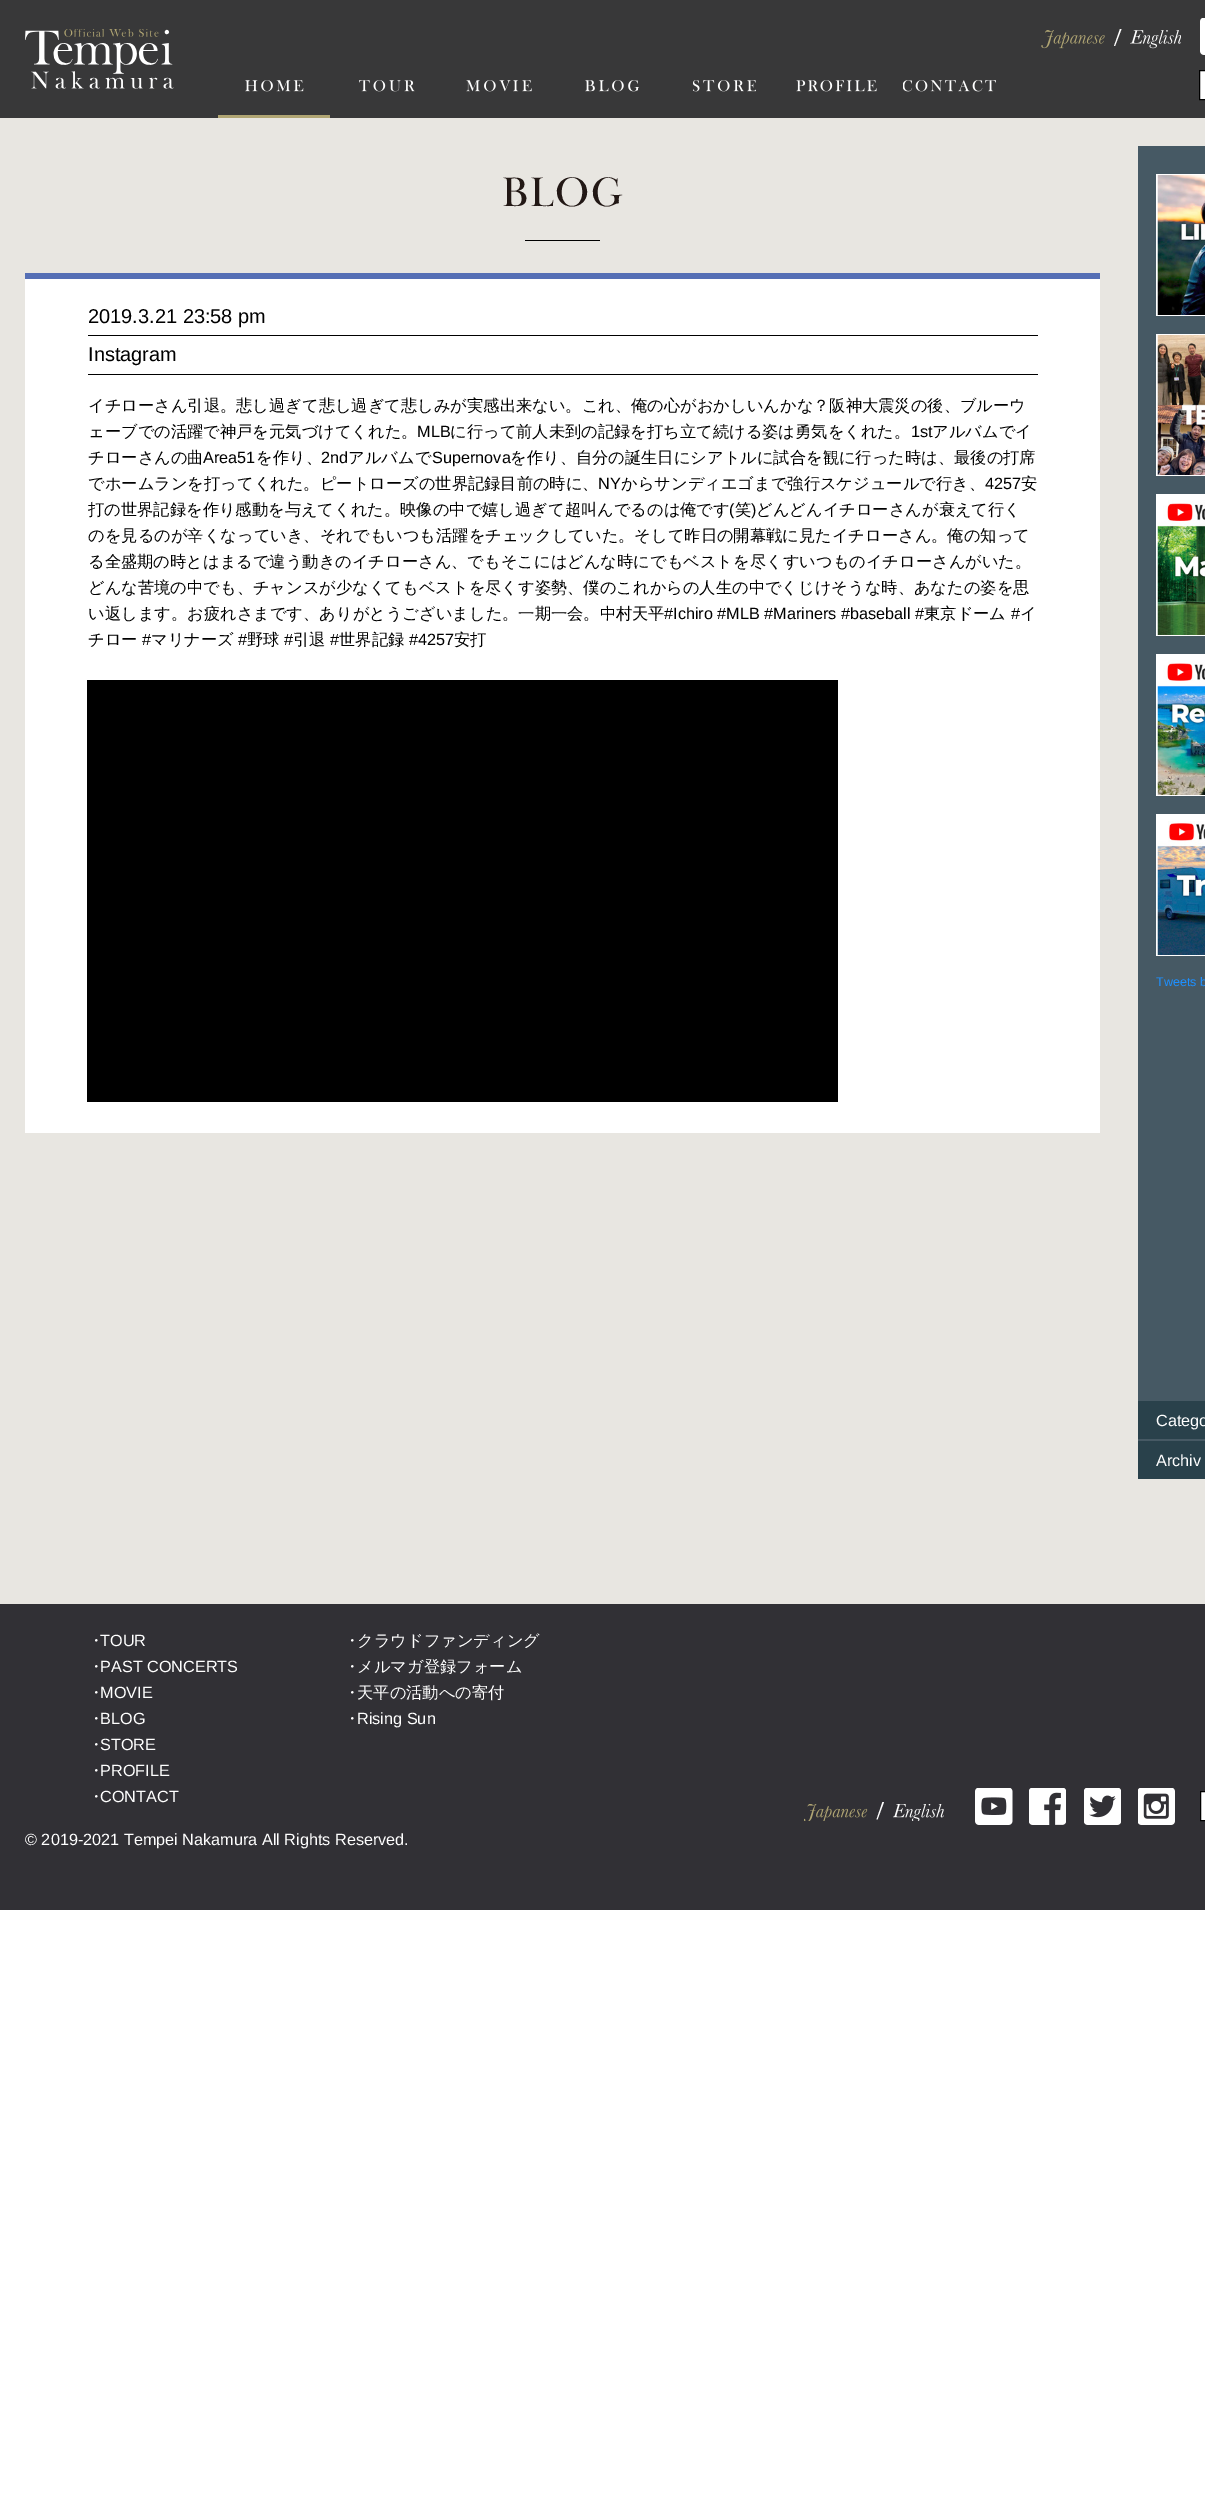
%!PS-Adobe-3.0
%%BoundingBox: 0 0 1205 2500
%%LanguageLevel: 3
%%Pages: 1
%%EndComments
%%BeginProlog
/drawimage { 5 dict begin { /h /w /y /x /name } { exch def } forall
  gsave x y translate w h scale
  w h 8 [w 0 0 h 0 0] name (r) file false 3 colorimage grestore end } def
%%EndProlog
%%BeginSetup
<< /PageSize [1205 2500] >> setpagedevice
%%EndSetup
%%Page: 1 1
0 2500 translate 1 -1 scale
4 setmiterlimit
1 setgray
0 0 1205 2500 rectfill
0.91 0.902 0.882 setrgbcolor
0 118 1205 1486 rectfill
0.22 0.22 0.224 setrgbcolor
0 0 1205 118 rectfill
(images/1.raw) 25 29 149 60 drawimage
(images/2.raw) 1041 30 64 19 drawimage
1 setgray
newpath 1120 29 moveto 1121.5 29 lineto 1115 46 lineto 1114 46 lineto closepath fill
(images/3.raw) 1130 30 51 19 drawimage
(images/4.raw) 1200 18 5 37 drawimage
newpath 1199.5 70.5 moveto 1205.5 70.5 lineto 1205.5 99.5 lineto 1199.5 99.5 lineto closepath gsave fill grestore
0 setgray
stroke
(images/5.raw) 245 80 59 12 drawimage
0.69 0.647 0.451 setrgbcolor
218 115 112 3 rectfill
(images/6.raw) 359 80 56 12 drawimage
(images/7.raw) 466 80 66 12 drawimage
(images/8.raw) 585 80 54 12 drawimage
(images/9.raw) 693 80 63 12 drawimage
(images/10.raw) 796 80 81 12 drawimage
(images/11.raw) 903 80 93 12 drawimage
0 setgray
525 240 75 1 rectfill
1 setgray
25 279 1075 854 rectfill
0.333 0.435 0.71 setrgbcolor
25 273 1075 6 rectfill
0 setgray
88 335 950 1 rectfill
88 374 950 1 rectfill
87 680 751 422 rectfill
0.275 0.349 0.392 setrgbcolor
1138 146 67 1295 rectfill
1 setgray
1156 174 49 142 rectfill
(images/12.raw) 1157 175 48 140 drawimage
1156 334 49 142 rectfill
(images/13.raw) 1157 335 48 140 drawimage
1156 494 49 142 rectfill
(images/14.raw) 1157 500 48 135 drawimage
1156 654 49 142 rectfill
(images/15.raw) 1157 660 48 135 drawimage
1156 814 49 142 rectfill
(images/16.raw) 1157 821 48 134 drawimage
0.161 0.255 0.294 setrgbcolor
1138 1401 67 38 rectfill
1138 1441 67 38 rectfill
0.192 0.188 0.208 setrgbcolor
0 1604 1205 306 rectfill
(images/17.raw) 804 1804 64 17 drawimage
1 setgray
newpath 882.5 1802 moveto 884 1802 lineto 877.5 1819.5 lineto 876.5 1819.5 lineto closepath fill
(images/18.raw) 893 1804 51 17 drawimage
(images/19.raw) 975 1788 38 37 drawimage
(images/20.raw) 1029 1788 37 37 drawimage
(images/21.raw) 1084 1788 37 37 drawimage
(images/22.raw) 1138 1788 37 37 drawimage
newpath 1200.5 1791.5 moveto 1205.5 1791.5 lineto 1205.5 1820.5 lineto 1200.5 1820.5 lineto closepath gsave fill grestore
0 setgray
stroke
/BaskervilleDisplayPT-Regular [42.5 0 0 -42.5 0 0] selectfont
0.133 0.094 0.082 setrgbcolor
502 206 moveto 1.5 0 (BLOG) ashow
/LiberationSans-Regular [20 0 0 -20 0 0] selectfont
0 setgray
88 323 moveto (2019.3.21 23:58 pm) show
88 361 moveto (Instagram) show
/WenQuanYiZenHei-Medium [16.25 0 0 -16.25 0 0] selectfont
88 411 moveto (イチローさん引退。悲し過ぎて悲し過ぎて悲しみが実感出来ない。これ、俺の心がおかしいんかな？阪神大震災の後、ブルーウ) show
88 437 moveto (ェーブでの活躍で神戸を元気づけてくれた。) show
/LiberationSans-Regular [16.25 0 0 -16.25 0 0] selectfont
417 437 moveto (MLB) show
/WenQuanYiZenHei-Medium [16.25 0 0 -16.25 0 0] selectfont
450 437 moveto (に行って前人未到の記録を打ち立て続ける姿は勇気をくれた。) show
/LiberationSans-Regular [16.25 0 0 -16.25 0 0] selectfont
911 437 moveto (1st) show
/WenQuanYiZenHei-Medium [16.25 0 0 -16.25 0 0] selectfont
932 437 moveto (アルバムでイ) show
88 463 moveto (チローさんの曲) show
/LiberationSans-Regular [16.25 0 0 -16.25 0 0] selectfont
203 463 moveto (Area51) show
/WenQuanYiZenHei-Medium [16.25 0 0 -16.25 0 0] selectfont
256 463 moveto (を作り、) show
/LiberationSans-Regular [16.25 0 0 -16.25 0 0] selectfont
321 463 moveto (2nd) show
/WenQuanYiZenHei-Medium [16.25 0 0 -16.25 0 0] selectfont
348 463 moveto (アルバムで) show
/LiberationSans-Regular [16.25 0 0 -16.25 0 0] selectfont
432 463 moveto (Supernova) show
/WenQuanYiZenHei-Medium [16.25 0 0 -16.25 0 0] selectfont
510 463 moveto (を作り、自分の誕生日にシアトルに試合を観に行った時は、最後の打席) show
88 489 moveto (でホームランを打ってくれた。ピートローズの世界記録目前の時に、) show
/LiberationSans-Regular [16.25 0 0 -16.25 0 0] selectfont
598 489 moveto (NY) show
/WenQuanYiZenHei-Medium [16.25 0 0 -16.25 0 0] selectfont
621 489 moveto (からサンディエゴまで強行スケジュールで行き、) show
/LiberationSans-Regular [16.25 0 0 -16.25 0 0] selectfont
985 489 moveto (4257) show
/WenQuanYiZenHei-Medium [16.25 0 0 -16.25 0 0] selectfont
1021 489 moveto (安) show
88 515 moveto (打の世界記録を作り感動を与えてくれた。映像の中で嬉し過ぎて超叫んでるのは俺です) show
/LiberationSans-Regular [16.25 0 0 -16.25 0 0] selectfont
729 515 moveto (\() show
/WenQuanYiZenHei-Medium [16.25 0 0 -16.25 0 0] selectfont
735 515 moveto (笑) show
/LiberationSans-Regular [16.25 0 0 -16.25 0 0] selectfont
751 515 moveto (\)) show
/WenQuanYiZenHei-Medium [16.25 0 0 -16.25 0 0] selectfont
756 515 moveto (どんどんイチローさんが衰えて行く) show
88 541 moveto (のを見るのが辛くなっていき、それでもいつも活躍をチェックしていた。そして昨日の開幕戦に見たイチローさん。俺の知って) show
88 567 moveto (る全盛期の時とはまるで違う動きのイチローさん、でもそこにはどんな時にでもベストを尽くすいつものイチローさんがいた。) show
88 593 moveto (どんな苦境の中でも、チャンスが少なくてもベストを尽くす姿勢、僕のこれからの人生の中でくじけそうな時、あなたの姿を思) show
88 619 moveto (い返します。お疲れさまです、ありがとうございました。一期一会。中村天平) show
/LiberationSans-Regular [16.25 0 0 -16.25 0 0] selectfont
664 619 moveto (#Ichiro #MLB #Mariners #baseball #) show
/WenQuanYiZenHei-Medium [16.25 0 0 -16.25 0 0] selectfont
924 619 moveto (東京ドーム) show
/LiberationSans-Regular [16.25 0 0 -16.25 0 0] selectfont
1011 619 moveto (#) show
/WenQuanYiZenHei-Medium [16.25 0 0 -16.25 0 0] selectfont
1020 619 moveto (イ) show
88 645 moveto (チロー) show
/LiberationSans-Regular [16.25 0 0 -16.25 0 0] selectfont
142 645 moveto (#) show
/WenQuanYiZenHei-Medium [16.25 0 0 -16.25 0 0] selectfont
151 645 moveto (マリナーズ) show
/LiberationSans-Regular [16.25 0 0 -16.25 0 0] selectfont
238 645 moveto (#) show
/WenQuanYiZenHei-Medium [16.25 0 0 -16.25 0 0] selectfont
247 645 moveto (野球) show
/LiberationSans-Regular [16.25 0 0 -16.25 0 0] selectfont
284 645 moveto (#) show
/WenQuanYiZenHei-Medium [16.25 0 0 -16.25 0 0] selectfont
293 645 moveto (引退) show
/LiberationSans-Regular [16.25 0 0 -16.25 0 0] selectfont
330 645 moveto (#) show
/WenQuanYiZenHei-Medium [16.25 0 0 -16.25 0 0] selectfont
339 645 moveto (世界記録) show
/LiberationSans-Regular [16.25 0 0 -16.25 0 0] selectfont
409 645 moveto (#4257) show
/WenQuanYiZenHei-Medium [16.25 0 0 -16.25 0 0] selectfont
454 645 moveto (安打) show
/LiberationSans-Regular [12.5 0 0 -12.5 0 0] selectfont
0.118 0.565 1 setrgbcolor
1156 986 moveto (Tweets b) show
/LiberationSans-Regular [16.25 0 0 -16.25 0 0] selectfont
1 setgray
1156 1426 moveto (Catego) show
1156 1466 moveto (Archiv) show
/WenQuanYiZenHei-Medium [16.25 0 0 -16.25 0 0] selectfont
88 1646 moveto (・) show
/LiberationSans-Regular [16.25 0 0 -16.25 0 0] selectfont
100 1646 moveto (TOUR) show
/WenQuanYiZenHei-Medium [16.25 0 0 -16.25 0 0] selectfont
88 1672 moveto (・) show
/LiberationSans-Regular [16.25 0 0 -16.25 0 0] selectfont
100 1672 moveto (PAST CONCERTS) show
/WenQuanYiZenHei-Medium [16.25 0 0 -16.25 0 0] selectfont
88 1698 moveto (・) show
/LiberationSans-Regular [16.25 0 0 -16.25 0 0] selectfont
100 1698 moveto (MOVIE) show
/WenQuanYiZenHei-Medium [16.25 0 0 -16.25 0 0] selectfont
88 1724 moveto (・) show
/LiberationSans-Regular [16.25 0 0 -16.25 0 0] selectfont
100 1724 moveto (BLOG) show
/WenQuanYiZenHei-Medium [16.25 0 0 -16.25 0 0] selectfont
88 1750 moveto (・) show
/LiberationSans-Regular [16.25 0 0 -16.25 0 0] selectfont
100 1750 moveto (STORE) show
/WenQuanYiZenHei-Medium [16.25 0 0 -16.25 0 0] selectfont
88 1776 moveto (・) show
/LiberationSans-Regular [16.25 0 0 -16.25 0 0] selectfont
100 1776 moveto (PROFILE) show
/WenQuanYiZenHei-Medium [16.25 0 0 -16.25 0 0] selectfont
88 1802 moveto (・) show
/LiberationSans-Regular [16.25 0 0 -16.25 0 0] selectfont
100 1802 moveto (CONTACT) show
/WenQuanYiZenHei-Medium [16.25 0 0 -16.25 0 0] selectfont
344 1646 moveto (・) show
357 1646 moveto (クラウドファンディング) show
344 1672 moveto (・) show
357 1672 moveto (メルマガ登録フォーム) show
344 1698 moveto (・) show
357 1698 moveto (天平の活動への寄付) show
344 1724 moveto (・) show
/LiberationSans-Regular [16.25 0 0 -16.25 0 0] selectfont
357 1724 moveto (Rising Sun) show
25 1845 moveto (© 2019-2021 Tempei Nakamura All Rights Reserved.) show
showpage
%%EOF
